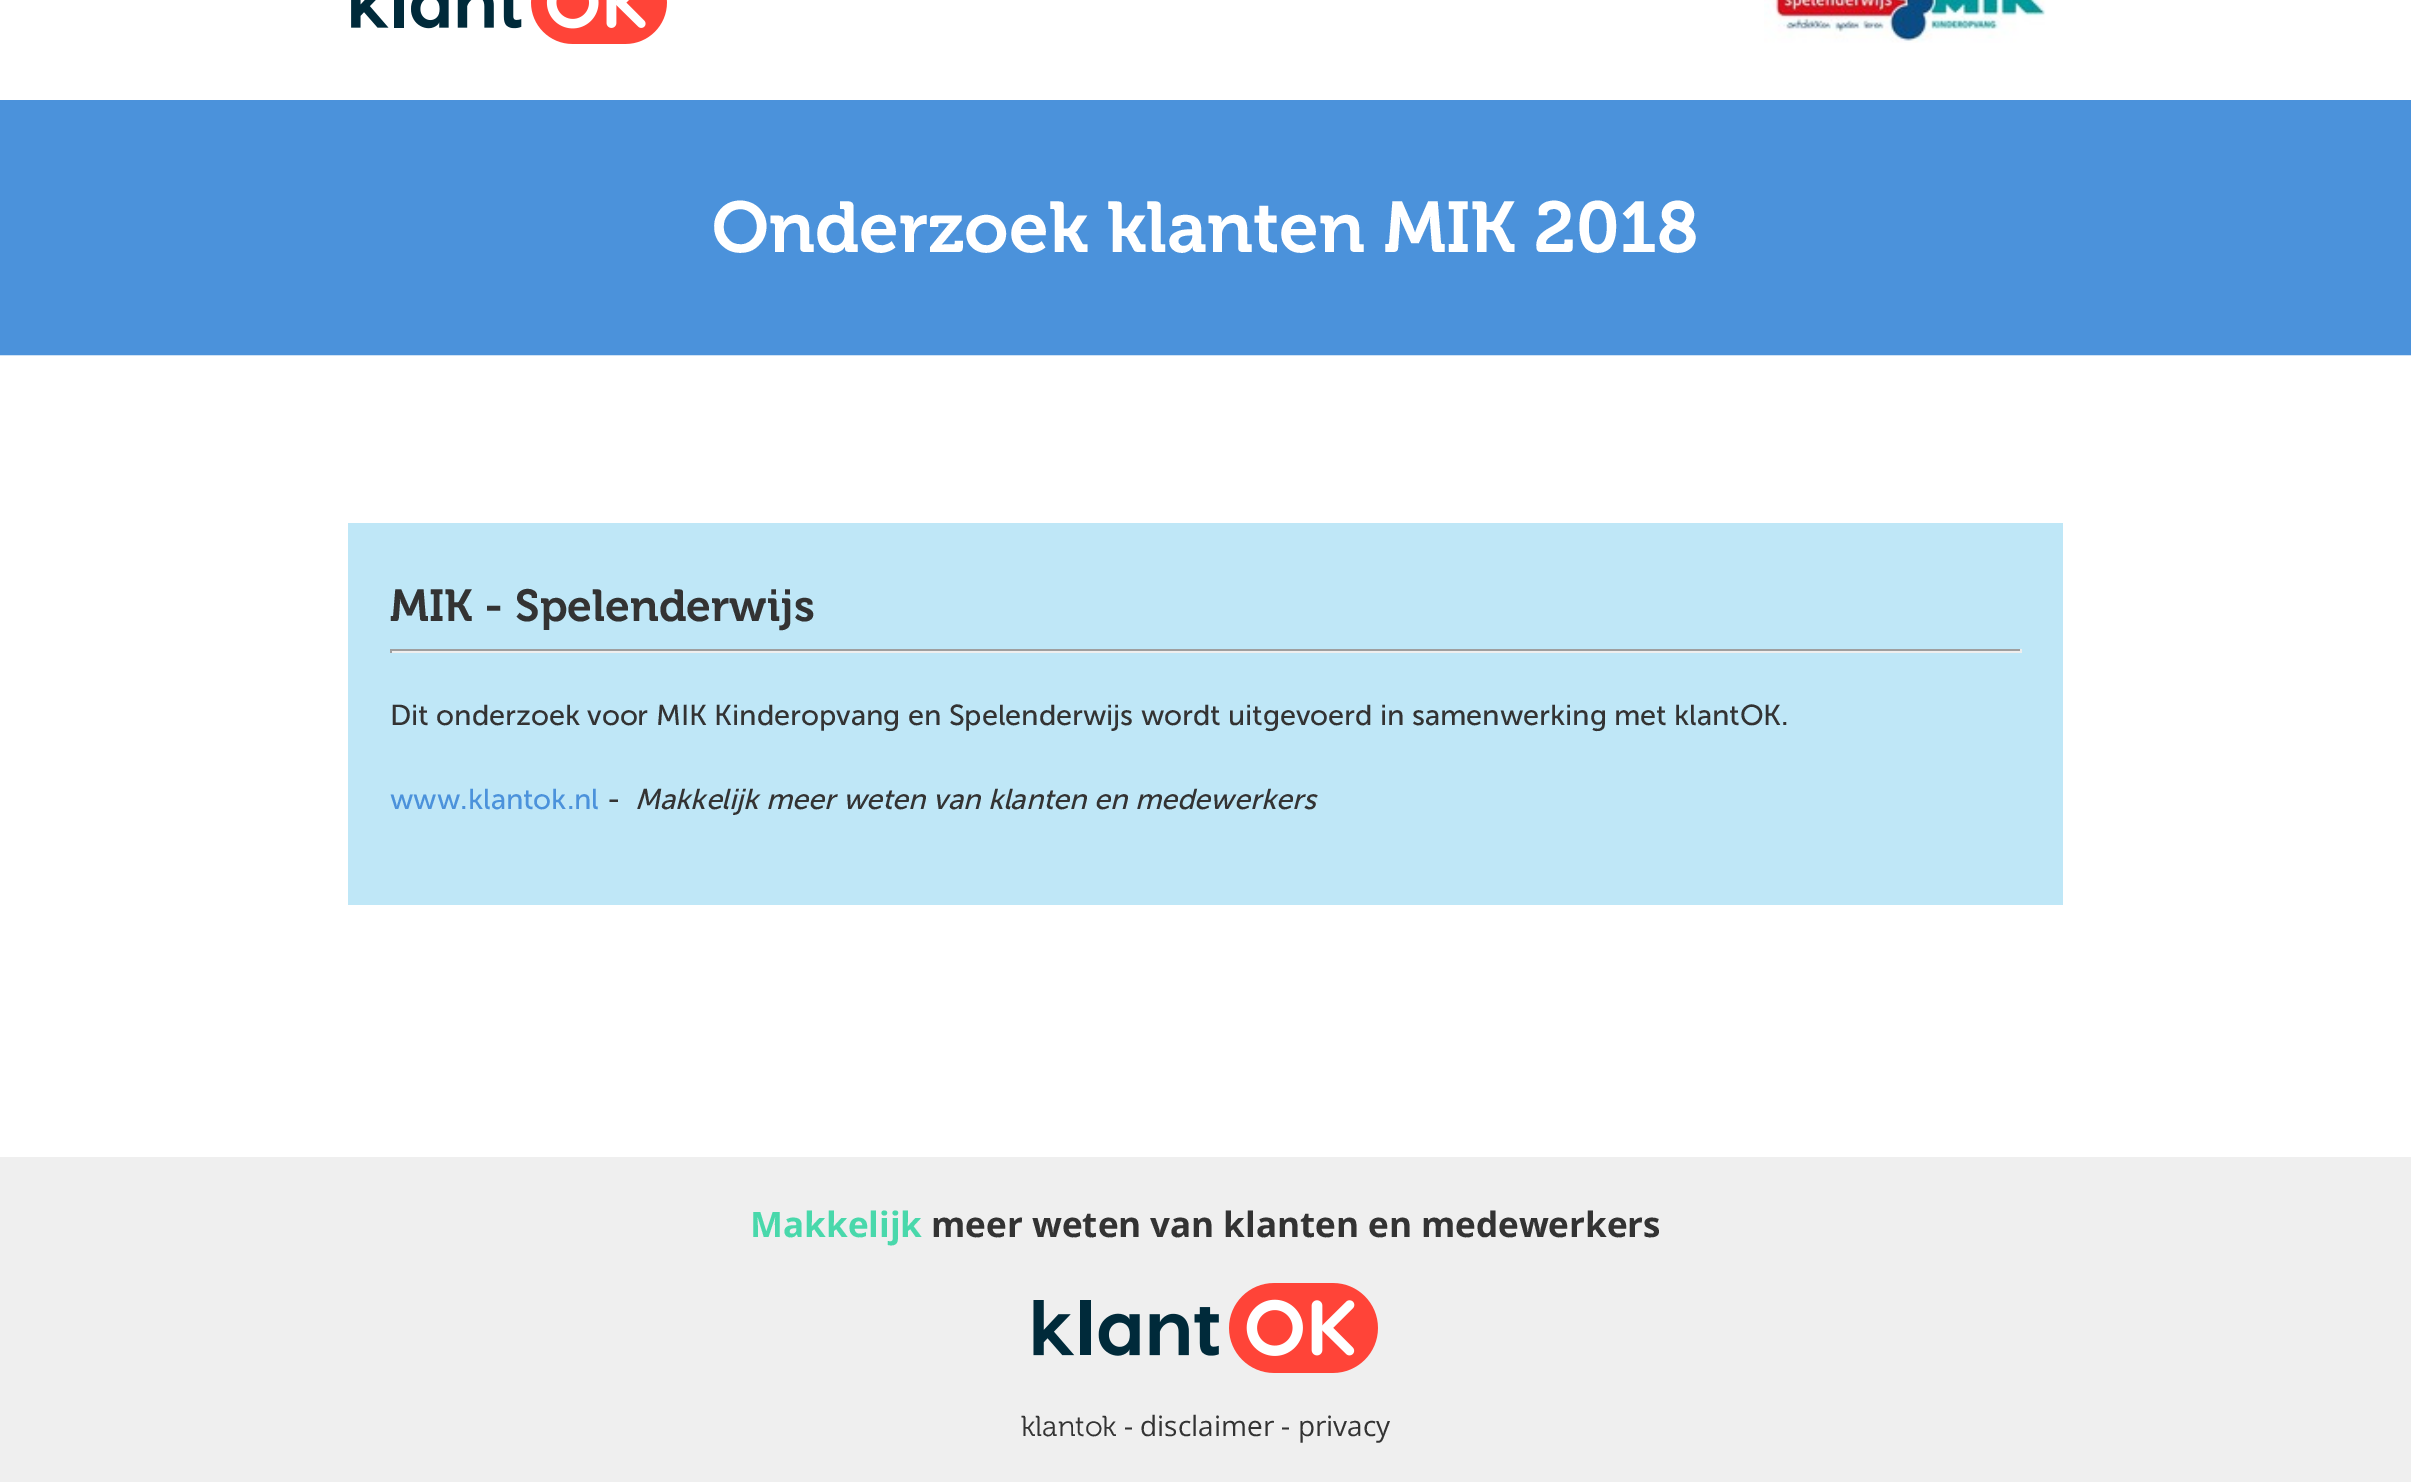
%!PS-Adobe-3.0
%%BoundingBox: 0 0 2411 1482
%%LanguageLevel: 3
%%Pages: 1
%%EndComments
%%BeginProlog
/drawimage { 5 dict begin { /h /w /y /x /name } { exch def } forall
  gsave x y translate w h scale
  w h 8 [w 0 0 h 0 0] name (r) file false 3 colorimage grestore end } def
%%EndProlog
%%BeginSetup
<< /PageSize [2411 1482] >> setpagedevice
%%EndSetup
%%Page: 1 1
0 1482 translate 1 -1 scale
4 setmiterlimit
1 setgray
0 0 2411 1482 rectfill
(images/1.raw) 351 0 316 44 drawimage
(images/2.raw) 1764 0 282 43 drawimage
0.294 0.573 0.859 setrgbcolor
newpath 1 101 moveto 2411 101 lineto 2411 354 lineto 1 354 lineto closepath gsave fill grestore
2 setlinewidth
stroke
0.749 0.906 0.969 setrgbcolor
348 523 1715 382 rectfill
0.624 setgray
390 649 1631 2 rectfill
0.933 setgray
2020 649 2 4 rectfill
390 651 1631 2 rectfill
0.624 setgray
390 649 2 4 rectfill
0.937 setgray
0 1157 2411 325 rectfill
(images/3.raw) 1033 1283 345 90 drawimage
/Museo-SemiBold [70 0 0 -70 0 0] selectfont
1 setgray
712 252 moveto (Onderzoek klanten MIK 2018) show
/Museo-SemiBold [43.75 0 0 -43.75 0 0] selectfont
0.2 setgray
390 621 moveto (MIK - Spelenderwijs) show
/MuseoSans-Regular [28 0 0 -28 0 0] selectfont
390 725 moveto (Dit onderzoek voor MIK Kinderopvang en Spelenderwijs wordt uitgevoerd in samenwerking met klantOK.) show
0.294 0.573 0.859 setrgbcolor
390 809 moveto (www.klantok.nl) show
0.2 setgray
607 809 moveto (-) show
/MuseoSans-Italic [28 0 0 -28 0 0] selectfont
635 809 moveto (Makkelijk meer weten van klanten en medewerkers) show
/OpenSans-Bold [35 0 0 -35 0 0] selectfont
0.286 0.847 0.671 setrgbcolor
750 1237 moveto (Makkelijk) show
0.2 setgray
931 1237 moveto (meer weten van klanten en medewerkers) show
/Museo-Light [28 0 0 -28 0 0] selectfont
1021 1436 moveto (klantok) show
/OpenSans-Regular [28 0 0 -28 0 0] selectfont
1124 1436 moveto (- disclaimer - privacy) show
showpage
%%EOF
